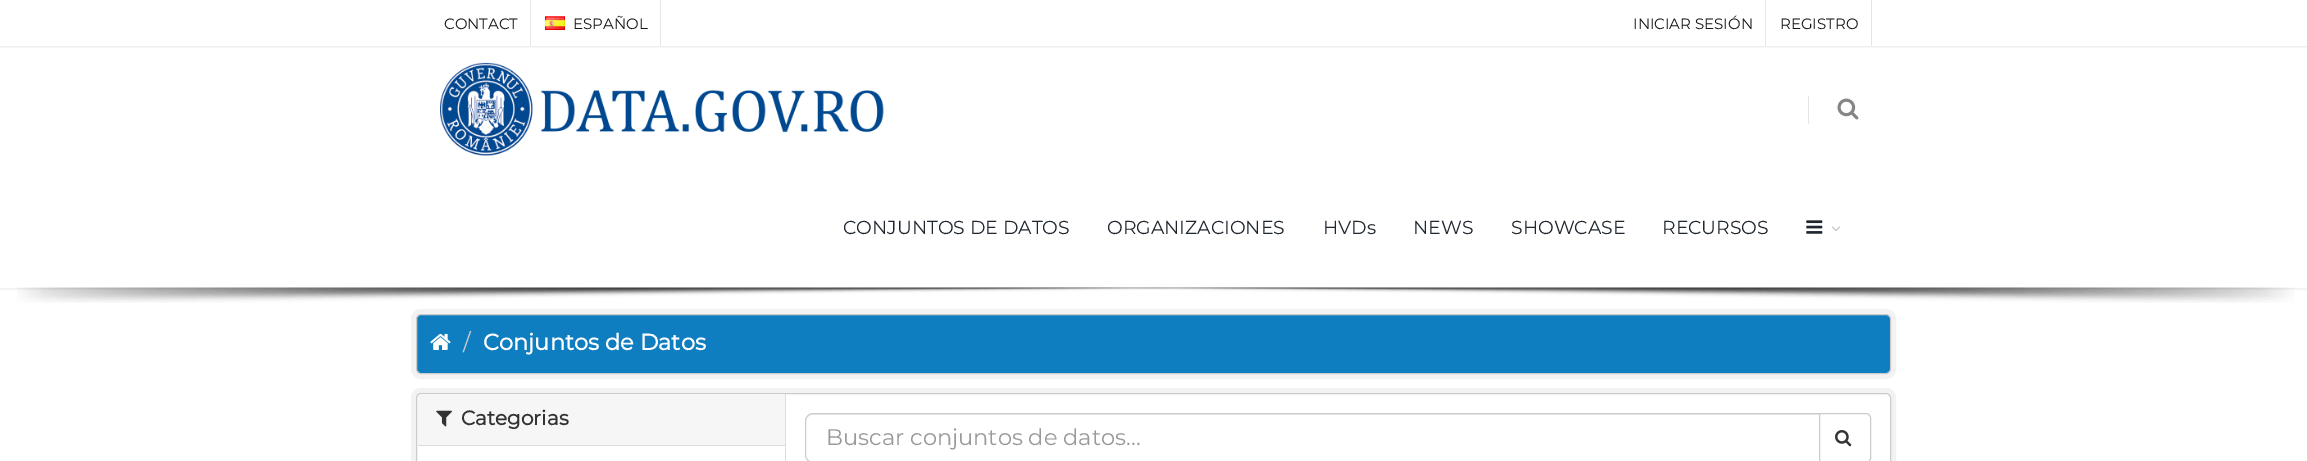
%!PS-Adobe-3.0
%%BoundingBox: 0 0 2307 461
%%LanguageLevel: 3
%%Pages: 1
%%EndComments
%%BeginProlog
/setalpha { dup .setfillconstantalpha .setstrokeconstantalpha } def
/rrect { 5 dict begin { /r /h /w /y /x } { exch def } forall
  x r add y moveto x w add y 2 copy h add r arct x w add y h add x 1 index r arct
  x y h add x y r arct x y 2 copy exch w add exch r arct closepath end } def
/softshadow { 12 dict begin { /a /b /q /h /w /y /x } { exch def } forall gsave /was 0 def
  9 -2 -9 { dup b mul 4 div /e exch def 1 sub .425 mul 2.718 exch exp 1 add a .99 .min exch div /now exch def
    1 1 now sub 1 was sub div sub setalpha /was now def
    w h .min e 2 mul add 0 gt { x e sub y e sub w e 2 mul add h e 2 mul add
      q e add b .6 mul add w h .min 2 div e add .min 0 .max rrect fill } if } for grestore end } def
/drawimage { 5 dict begin { /h /w /y /x /name } { exch def } forall
  gsave x y translate w h scale
  w h 8 [w 0 0 h 0 0] name (r) file false 3 colorimage grestore end } def
%%EndProlog
%%BeginSetup
<< /PageSize [2307 461] /PageUsesTransparency true >> setpagedevice
%%EndSetup
%%Page: 1 1
0 .pushpdf14devicefilter
0 461 translate 1 -1 scale
4 setmiterlimit
1 setgray
0 0 2307 461 rectfill
0.949 setgray
0 46 2307 1 rectfill
0.902 setgray
530 0 1 46 rectfill
660 0 1 46 rectfill
(images/1.raw) 545 16 20 14 drawimage
1765 0 1 46 rectfill
1871 0 1 46 rectfill
0 setgray
0 48 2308 241 0 1 0.1 softshadow
1 setgray
0 48 2307 240 rectfill
0.949 setgray
0 288 2307 1 rectfill
(images/2.raw) 439 62 445 94 drawimage
0.902 setgray
1808 96 1 28 rectfill
(images/3.raw) 1837 98 22 22 drawimage
(images/4.raw) 1806 220 17 14 drawimage
(images/5.raw) 1832 226 8 5 drawimage
(images/6.raw) 17 287 2277 16 drawimage
0.949 setgray
5 setlinewidth
413.5 311.5 1480 65 7.5 rrect stroke
0.055 0.494 0.757 setrgbcolor
416.5 314.5 1474 59 4.5 rrect gsave fill grestore
0.8 setgray
1 setlinewidth
stroke
(images/7.raw) 430 333 21 17 drawimage
0.949 setgray
5 setlinewidth
413.5 390.5 1480 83 7.5 rrect stroke
1 setgray
416.5 393.5 1474 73 4.5 rrect gsave fill grestore
0.8 setgray
1 setlinewidth
stroke
0.965 setgray
newpath 422 394 moveto 785 394 lineto 785 446 lineto 418 446 lineto 418 398 lineto 418 396 420 394 422 394 curveto closepath fill
0.867 setgray
418 445 367 1 rectfill
(images/8.raw) 436 410 16 17 drawimage
785 394 1 67 rectfill
0.925 setgray
newpath 812 415 moveto 1819 415 lineto 1819 414 lineto 812 414 lineto 808 414 806 417 806 421 curveto 806 418 809 415 812 415 curveto closepath fill
0.8 setgray
newpath 813 413.5 moveto 1819.5 413.5 lineto 1819.5 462.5 lineto 813 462.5 lineto 809 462.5 805.5 459 805.5 455 curveto 805.5 421 lineto 805.5 417 809 413.5 813 413.5 curveto closepath stroke
1 setgray
newpath 1819.5 413.5 moveto 1866 413.5 lineto 1868.5 413.5 1870.5 415.5 1870.5 418 curveto 1870.5 458 lineto 1870.5 460.5 1868.5 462.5 1866 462.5 curveto 1819.5 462.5 lineto closepath gsave fill grestore
0.8 setgray
stroke
(images/9.raw) 1835 430 17 17 drawimage
/Montserrat-Thin [15 0 0 -15 0 0] selectfont
0.082 setgray
444 29 moveto (CONTACT) show
573 29 moveto (ESPAÑOL) show
1633 29 moveto (INICIAR SESIÓN) show
1780 29 moveto (REGISTRO) show
/Montserrat-Thin [18.75 0 0 -18.75 0 0] selectfont
0.122 0.149 0.176 setrgbcolor
843 234 moveto (CONJUNTOS DE DATOS) show
1107 234 moveto (ORGANIZACIONES) show
1323 234 moveto (HVDs) show
1413 234 moveto (NEWS) show
1511 234 moveto (SHOWCASE) show
1662 234 moveto (RECURSOS) show
/Montserrat-Thin [22.5 0 0 -22.5 0 0] selectfont
0.8 setgray
463 350 moveto (/) show
/Montserrat-Bold [22.5 0 0 -22.5 0 0] selectfont
1 setgray
483 350 moveto (Conjuntos de Datos) show
/Montserrat-Bold [20 0 0 -20 0 0] selectfont
0.2 setgray
461 425 moveto (Categorias) show
/Montserrat-Thin [22.5 0 0 -22.5 0 0] selectfont
0.6 setgray
826 445 moveto (Buscar conjuntos de datos...) show
.poppdf14devicefilter showpage
%%EOF
